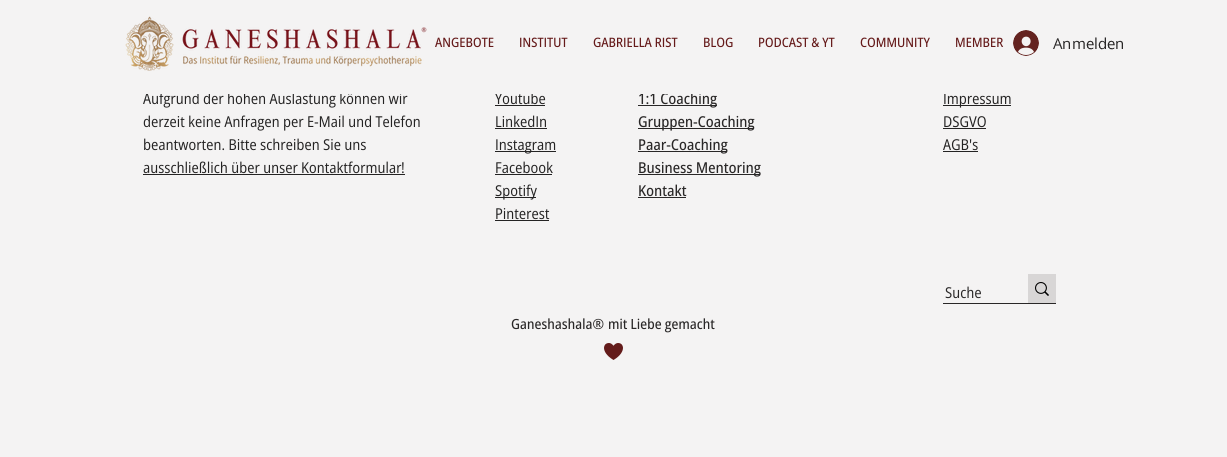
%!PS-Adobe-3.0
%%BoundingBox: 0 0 1227 457
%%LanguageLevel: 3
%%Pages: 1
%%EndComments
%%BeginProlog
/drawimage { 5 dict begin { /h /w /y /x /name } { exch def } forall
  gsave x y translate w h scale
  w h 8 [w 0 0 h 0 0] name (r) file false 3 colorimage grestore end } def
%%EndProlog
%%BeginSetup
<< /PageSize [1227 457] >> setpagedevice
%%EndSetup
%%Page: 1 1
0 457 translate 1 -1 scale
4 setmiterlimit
0.957 0.953 0.953 setrgbcolor
0 0 1227 457 rectfill
(images/1.raw) 125 16 302 55 drawimage
(images/2.raw) 435 37 59 11 drawimage
(images/3.raw) 520 37 48 11 drawimage
(images/4.raw) 593 37 85 11 drawimage
(images/5.raw) 704 37 29 11 drawimage
(images/6.raw) 759 37 76 11 drawimage
(images/7.raw) 860 37 70 11 drawimage
(images/8.raw) 956 37 48 10 drawimage
(images/9.raw) 1013 30 26 26 drawimage
(images/10.raw) 143 94 265 14 drawimage
(images/11.raw) 143 115 277 16 drawimage
(images/12.raw) 144 138 222 13 drawimage
(images/13.raw) 143 161 155 13 drawimage
(images/14.raw) 302 161 100 13 drawimage
(images/15.raw) 402 162 2 12 drawimage
0.141 0.137 0.137 setrgbcolor
143 174 262 1 rectfill
(images/16.raw) 495 94 51 11 drawimage
495 105 50 1 rectfill
(images/17.raw) 496 115 50 13 drawimage
495 128 52 1 rectfill
495 151 61 1 rectfill
(images/18.raw) 496 139 60 15 drawimage
(images/19.raw) 496 161 57 13 drawimage
495 174 57 1 rectfill
495 197 41 1 rectfill
(images/20.raw) 495 184 42 16 drawimage
(images/21.raw) 496 208 54 12 drawimage
495 220 54 1 rectfill
0.161 0.153 0.153 setrgbcolor
638 105 79 1 rectfill
(images/22.raw) 639 94 78 14 drawimage
638 128 116 1 rectfill
(images/23.raw) 638 115 117 16 drawimage
638 151 89 1 rectfill
(images/24.raw) 639 138 89 16 drawimage
638 174 122 1 rectfill
(images/25.raw) 639 161 122 16 drawimage
(images/26.raw) 639 184 48 13 drawimage
638 197 48 1 rectfill
0.141 0.137 0.137 setrgbcolor
943 105 68 1 rectfill
(images/27.raw) 944 94 67 14 drawimage
(images/28.raw) 944 116 42 12 drawimage
943 128 43 1 rectfill
(images/29.raw) 943 139 35 12 drawimage
943 151 35 1 rectfill
0.161 0.153 0.153 setrgbcolor
943 303 113 1 rectfill
(images/30.raw) 945 286 36 13 drawimage
0.847 0.839 0.839 setrgbcolor
1028 274 28 29 rectfill
(images/31.raw) 1035 282 14 14 drawimage
(images/32.raw) 511 318 93 12 drawimage
(images/33.raw) 609 318 106 15 drawimage
(images/34.raw) 604 343 19 17 drawimage
/OpenSans-Regular [15 0 0 -15 0 0] selectfont
0.161 0.153 0.153 setrgbcolor
1053 49 moveto (Anmelden) show
showpage
%%EOF
